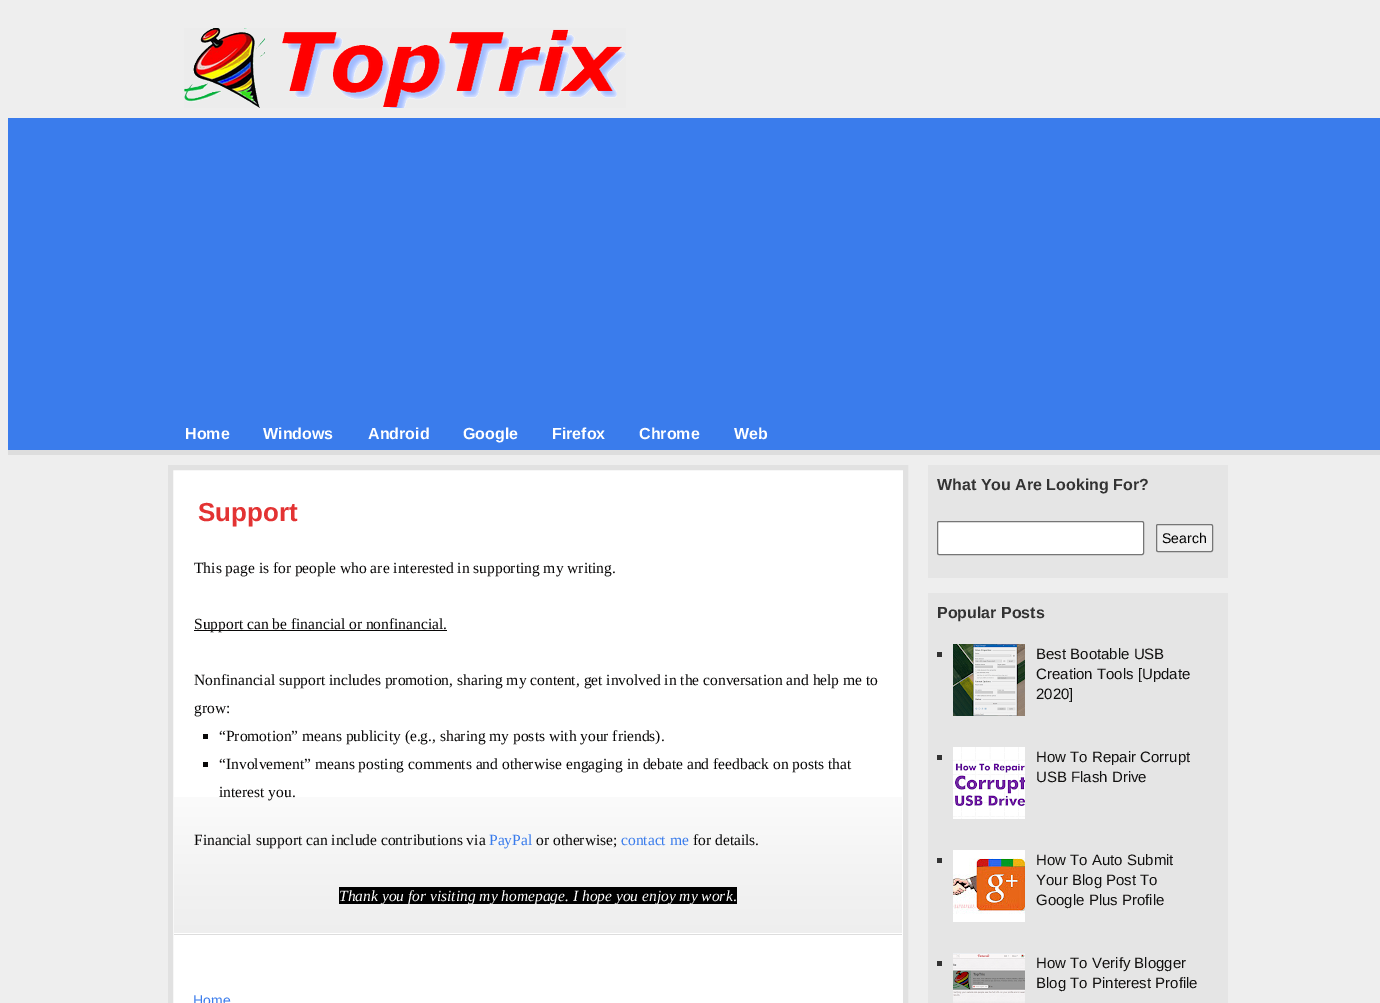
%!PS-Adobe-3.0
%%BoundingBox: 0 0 1380 1003
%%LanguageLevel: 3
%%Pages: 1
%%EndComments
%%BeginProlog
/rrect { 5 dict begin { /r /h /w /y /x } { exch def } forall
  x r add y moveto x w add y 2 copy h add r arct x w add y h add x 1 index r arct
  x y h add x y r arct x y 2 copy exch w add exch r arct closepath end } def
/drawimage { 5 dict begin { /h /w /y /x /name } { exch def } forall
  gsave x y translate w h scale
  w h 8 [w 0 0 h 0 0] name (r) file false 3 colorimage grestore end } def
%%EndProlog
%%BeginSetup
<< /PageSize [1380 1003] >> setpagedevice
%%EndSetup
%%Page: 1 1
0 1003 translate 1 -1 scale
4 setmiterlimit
0.933 setgray
0 0 1380 1003 rectfill
(images/1.raw) 184 28 442 80 drawimage
0.227 0.486 0.925 setrgbcolor
8 118 1372 332 rectfill
0.867 setgray
8 450 1372 5 rectfill
1 setgray
newpath 170.5 467.5 moveto 905.5 467.5 lineto 905.5 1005.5 lineto 170.5 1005.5 lineto closepath gsave fill grestore
0.882 setgray
5 setlinewidth
stroke
(images/2.raw) 174 797 728 138 drawimage
0.035 0.031 0.031 setrgbcolor
194 630 253 1 rectfill
203 734 5 5 rectfill
203 762 5 5 rectfill
0 setgray
339 887 398 17 rectfill
0.898 setgray
928 465 300 113 rectfill
1 setgray
937.5 521.5 206 33 1.5 rrect gsave fill grestore
0.463 setgray
1 setlinewidth
stroke
0.937 setgray
1156.5 524.5 56 27 1.5 rrect gsave fill grestore
0.463 setgray
stroke
0.898 setgray
928 593 300 410 rectfill
0.2 setgray
937 652 5 5 rectfill
(images/3.raw) 953 644 72 72 drawimage
937 755 5 5 rectfill
(images/4.raw) 953 747 72 72 drawimage
937 858 5 5 rectfill
(images/5.raw) 953 850 72 72 drawimage
937 961 5 5 rectfill
(images/6.raw) 953 953 72 50 drawimage
/LiberationSans-Bold [16 0 0 -16 0 0] selectfont
1 setgray
185 439 moveto (Home) show
263 439 moveto (Windows) show
368 439 moveto (Android) show
463 439 moveto (Google) show
552 439 moveto (Firefox) show
639 439 moveto (Chrome) show
734 439 moveto (Web) show
/LiberationSans-Bold [26 0 0 -26 0 0] selectfont
0.89 0.2 0.2 setrgbcolor
198 521 moveto (Support) show
/LiberationSerif-Regular [15.5 0 0 -15.5 0 0] selectfont
0.035 0.031 0.031 setrgbcolor
194 573 moveto (This page is for people who are interested in supporting my writing.) show
194 629 moveto (Support can be financial or nonfinancial.) show
194 685 moveto (Nonfinancial support includes promotion, sharing my content, get involved in the conversation and help me to) show
194 713 moveto (grow:) show
219 741 moveto (“Promotion” means publicity \(e.g., sharing my posts with your friends\).) show
219 769 moveto (“Involvement” means posting comments and otherwise engaging in debate and feedback on posts that) show
219 797 moveto (interest you.) show
194 845 moveto (Financial support can include contributions via) show
0.227 0.486 0.925 setrgbcolor
489 845 moveto (PayPal) show
0.035 0.031 0.031 setrgbcolor
536 845 moveto (or otherwise;) show
0.227 0.486 0.925 setrgbcolor
621 845 moveto (contact me) show
0.035 0.031 0.031 setrgbcolor
693 845 moveto (for details.) show
/LiberationSerif-Italic [15.5 0 0 -15.5 0 0] selectfont
1 setgray
339 901 moveto (Thank you for visiting my homepage. I hope you enjoy my work) show
/LiberationSerif-Regular [15.5 0 0 -15.5 0 0] selectfont
733 901 moveto (.) show
/LiberationSans-Regular [14 0 0 -14 0 0] selectfont
0.227 0.486 0.925 setrgbcolor
193 1005 moveto (Home) show
/LiberationSans-Bold [16 0 0 -16 0 0] selectfont
0.2 setgray
937 490 moveto (What You Are Looking For?) show
/LiberationSans-Regular [14 0 0 -14 0 0] selectfont
0 setgray
1162 543 moveto (Search) show
/LiberationSans-Bold [16 0 0 -16 0 0] selectfont
0.2 setgray
937 618 moveto (Popular Posts) show
/LiberationSans-Regular [15 0 0 -15 0 0] selectfont
0.071 0.067 0.063 setrgbcolor
1036 659 moveto (Best Bootable USB) show
1036 679 moveto (Creation Tools [Update) show
1036 699 moveto (2020]) show
1036 762 moveto (How To Repair Corrupt) show
1036 782 moveto (USB Flash Drive) show
1036 865 moveto (How To Auto Submit) show
1036 885 moveto (Your Blog Post To) show
1036 905 moveto (Google Plus Profile) show
1036 968 moveto (How To Verify Blogger) show
1036 988 moveto (Blog To Pinterest Profile) show
showpage
%%EOF
